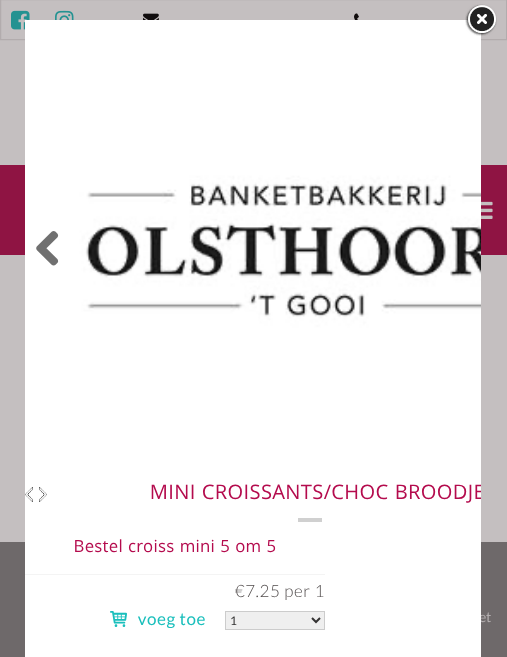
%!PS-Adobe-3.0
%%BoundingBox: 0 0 507 657
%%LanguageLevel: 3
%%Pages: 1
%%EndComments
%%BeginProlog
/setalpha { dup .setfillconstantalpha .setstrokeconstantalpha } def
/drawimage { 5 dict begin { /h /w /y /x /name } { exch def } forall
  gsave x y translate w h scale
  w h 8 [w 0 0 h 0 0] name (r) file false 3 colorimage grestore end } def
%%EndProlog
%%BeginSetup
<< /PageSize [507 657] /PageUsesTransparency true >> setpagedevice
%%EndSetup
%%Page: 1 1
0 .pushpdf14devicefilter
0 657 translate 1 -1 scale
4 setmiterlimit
0.769 0.749 0.753 setrgbcolor
0 0 507 657 rectfill
0.698 0.675 0.678 setrgbcolor
0.5 -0.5 506 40 rectstroke
(images/1.raw) 11 10 19 20 drawimage
(images/2.raw) 55 10 19 10 drawimage
(images/3.raw) 143 13 16 7 drawimage
(images/4.raw) 354 13 5 7 drawimage
(images/5.raw) 493 24 2 3 drawimage
0.561 0.078 0.263 setrgbcolor
0 165 507 90 rectfill
(images/8.raw) 481 201 12 18 drawimage
0.8 setalpha
0.349 0.329 0.333 setrgbcolor
0 542 507 115 rectfill
/Lato-Regular [14 0 0 -14 0 0] selectfont
1 setalpha
0.702 0.682 0.686 setrgbcolor
479 622 moveto (et) show
(images/7.raw) 25 20 456 637 drawimage
(images/6.raw) 465 4 32 32 drawimage
.poppdf14devicefilter showpage
%%EOF
